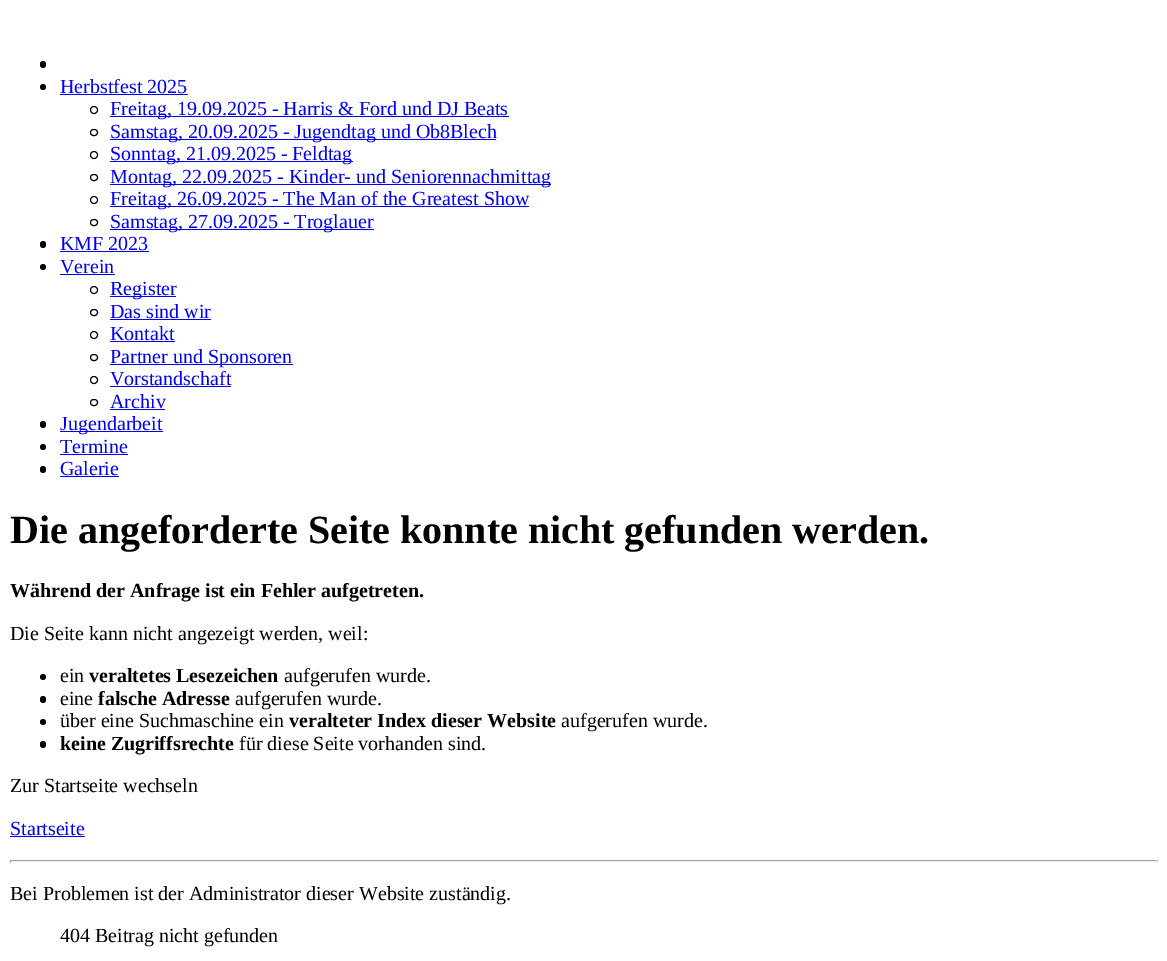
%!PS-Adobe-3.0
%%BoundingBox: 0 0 1167 961
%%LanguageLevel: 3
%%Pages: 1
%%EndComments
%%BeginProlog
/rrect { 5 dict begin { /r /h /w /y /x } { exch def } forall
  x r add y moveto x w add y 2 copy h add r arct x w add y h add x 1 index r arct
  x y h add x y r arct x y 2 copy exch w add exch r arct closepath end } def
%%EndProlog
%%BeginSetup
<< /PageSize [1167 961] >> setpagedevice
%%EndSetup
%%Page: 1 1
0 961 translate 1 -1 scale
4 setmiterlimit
1 setgray
0 0 1167 961 rectfill
0 setgray
40 61 6 7 3 rrect fill
newpath 43 87 3 0 360 arc closepath fill
0 0 0.933 setrgbcolor
60 94 128 1 rectfill
0 setgray
newpath 94 110 3.5 0 360 arc closepath stroke
0 0 0.933 setrgbcolor
110 116 399 1 rectfill
0 setgray
90.5 129.5 7 6 3 rrect stroke
0 0 0.933 setrgbcolor
110 139 386 1 rectfill
0 setgray
newpath 94 155 3.5 0 360 arc closepath stroke
0 0 0.933 setrgbcolor
110 161 243 1 rectfill
0 setgray
90.5 174.5 7 6 3 rrect stroke
0 0 0.933 setrgbcolor
110 184 441 1 rectfill
0 setgray
newpath 94 200 3.5 0 360 arc closepath stroke
0 0 0.933 setrgbcolor
110 206 419 1 rectfill
0 setgray
90.5 219.5 7 6 3 rrect stroke
0 0 0.933 setrgbcolor
110 229 264 1 rectfill
0 setgray
40 241 6 7 3 rrect fill
0 0 0.933 setrgbcolor
60 251 89 1 rectfill
0 setgray
newpath 43 267 3 0 360 arc closepath fill
0 0 0.933 setrgbcolor
60 274 55 1 rectfill
0 setgray
newpath 94 290 3.5 0 360 arc closepath stroke
0 0 0.933 setrgbcolor
110 296 66 1 rectfill
0 setgray
90.5 309.5 7 6 3 rrect stroke
0 0 0.933 setrgbcolor
110 319 101 1 rectfill
0 setgray
newpath 94 335 3.5 0 360 arc closepath stroke
0 0 0.933 setrgbcolor
110 341 65 1 rectfill
0 setgray
90.5 354.5 7 6 3 rrect stroke
0 0 0.933 setrgbcolor
110 364 183 1 rectfill
0 setgray
newpath 94 380 3.5 0 360 arc closepath stroke
0 0 0.933 setrgbcolor
110 386 121 1 rectfill
0 setgray
90.5 399.5 7 6 3 rrect stroke
0 0 0.933 setrgbcolor
110 409 55 1 rectfill
0 setgray
40 421 6 7 3 rrect fill
0 0 0.933 setrgbcolor
60 431 103 1 rectfill
0 setgray
newpath 43 447 3 0 360 arc closepath fill
0 0 0.933 setrgbcolor
60 454 68 1 rectfill
0 setgray
40 466 6 7 3 rrect fill
0 0 0.933 setrgbcolor
60 476 59 1 rectfill
0 setgray
newpath 43 677 3 0 360 arc closepath fill
40 696 6 7 3 rrect fill
newpath 43 722 3 0 360 arc closepath fill
40 741 6 7 3 rrect fill
0 0 0.933 setrgbcolor
10 836 75 1 rectfill
0.624 setgray
10 860 1148 1 rectfill
0.933 setgray
1156 860 1 3 rectfill
10 861 1148 1 rectfill
0.624 setgray
10 860 1 3 rectfill
/LiberationSerif-Regular [20 0 0 -20 0 0] selectfont
0 0 0.933 setrgbcolor
60 93 moveto (Herbstfest 2025) show
110 115 moveto (Freitag, 19.09.2025 - Harris & Ford und DJ Beats) show
110 138 moveto (Samstag, 20.09.2025 - Jugendtag und Ob8Blech) show
110 160 moveto (Sonntag, 21.09.2025 - Feldtag) show
110 183 moveto (Montag, 22.09.2025 - Kinder- und Seniorennachmittag) show
110 205 moveto (Freitag, 26.09.2025 - The Man of the Greatest Show) show
110 228 moveto (Samstag, 27.09.2025 - Troglauer) show
60 250 moveto (KMF 2023) show
60 273 moveto (Verein) show
110 295 moveto (Register) show
110 318 moveto (Das sind wir) show
110 340 moveto (Kontakt) show
110 363 moveto (Partner und Sponsoren) show
110 385 moveto (Vorstandschaft) show
110 408 moveto (Archiv) show
60 430 moveto (Jugendarbeit) show
60 453 moveto (Termine) show
60 475 moveto (Galerie) show
/LiberationSerif-Bold [40 0 0 -40 0 0] selectfont
0 setgray
10 543 moveto (Die angeforderte Seite konnte nicht gefunden werden.) show
/LiberationSerif-Bold [20 0 0 -20 0 0] selectfont
10 597 moveto (Während der Anfrage ist ein Fehler aufgetreten.) show
/LiberationSerif-Regular [20 0 0 -20 0 0] selectfont
10 640 moveto (Die Seite kann nicht angezeigt werden, weil:) show
60 682 moveto (ein) show
/LiberationSerif-Bold [20 0 0 -20 0 0] selectfont
89 682 moveto (veraltetes Lesezeichen) show
/LiberationSerif-Regular [20 0 0 -20 0 0] selectfont
284 682 moveto (aufgerufen wurde.) show
60 705 moveto (eine) show
/LiberationSerif-Bold [20 0 0 -20 0 0] selectfont
98 705 moveto (falsche Adresse) show
/LiberationSerif-Regular [20 0 0 -20 0 0] selectfont
235 705 moveto (aufgerufen wurde.) show
60 727 moveto (über eine Suchmaschine ein) show
/LiberationSerif-Bold [20 0 0 -20 0 0] selectfont
289 727 moveto (veralteter Index dieser Website) show
/LiberationSerif-Regular [20 0 0 -20 0 0] selectfont
561 727 moveto (aufgerufen wurde.) show
/LiberationSerif-Bold [20 0 0 -20 0 0] selectfont
60 750 moveto (keine Zugriffsrechte) show
/LiberationSerif-Regular [20 0 0 -20 0 0] selectfont
239 750 moveto (für diese Seite vorhanden sind.) show
10 792 moveto (Zur Startseite wechseln) show
0 0 0.933 setrgbcolor
10 835 moveto (Startseite) show
0 setgray
10 900 moveto (Bei Problemen ist der Administrator dieser Website zuständig.) show
60 942 moveto (404 Beitrag nicht gefunden) show
showpage
%%EOF
